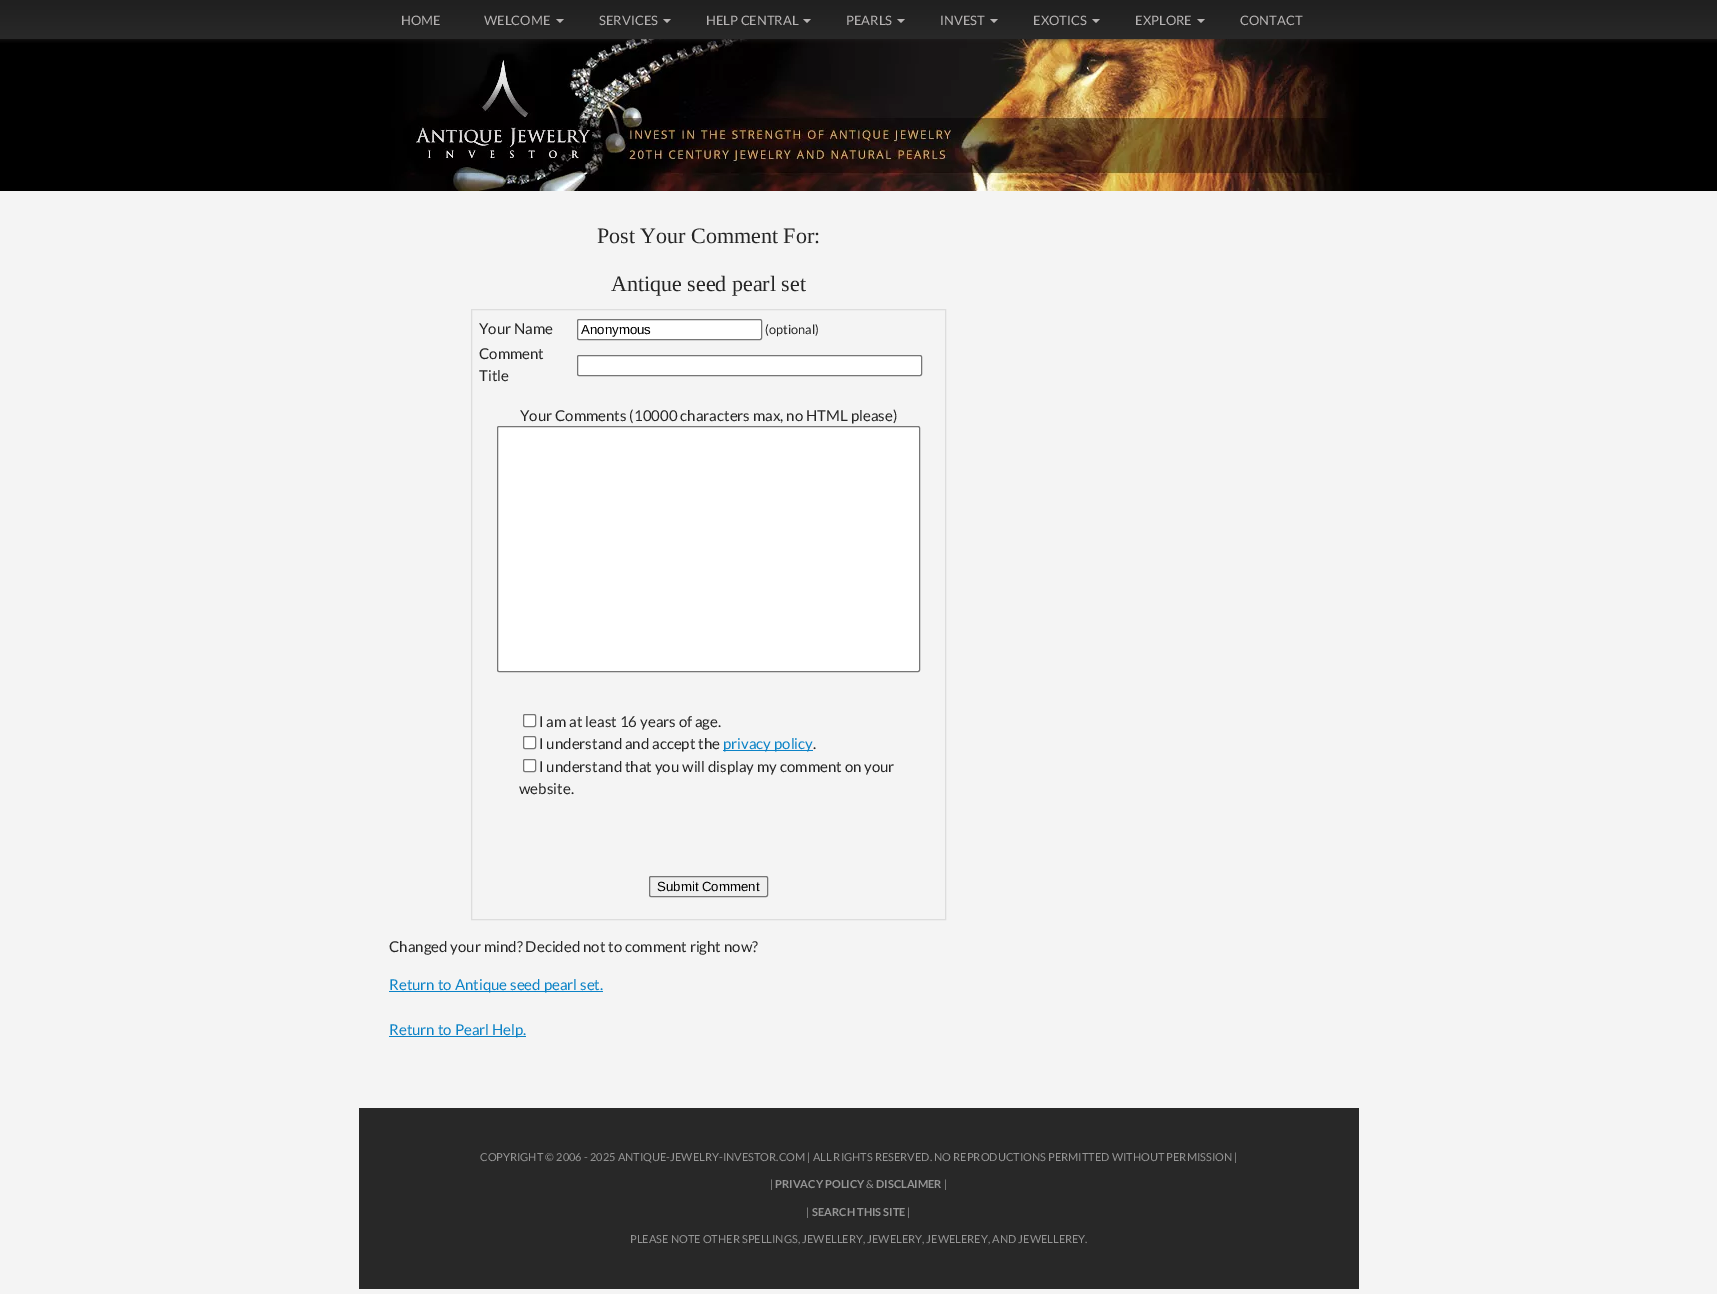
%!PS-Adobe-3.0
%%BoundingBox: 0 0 1717 1294
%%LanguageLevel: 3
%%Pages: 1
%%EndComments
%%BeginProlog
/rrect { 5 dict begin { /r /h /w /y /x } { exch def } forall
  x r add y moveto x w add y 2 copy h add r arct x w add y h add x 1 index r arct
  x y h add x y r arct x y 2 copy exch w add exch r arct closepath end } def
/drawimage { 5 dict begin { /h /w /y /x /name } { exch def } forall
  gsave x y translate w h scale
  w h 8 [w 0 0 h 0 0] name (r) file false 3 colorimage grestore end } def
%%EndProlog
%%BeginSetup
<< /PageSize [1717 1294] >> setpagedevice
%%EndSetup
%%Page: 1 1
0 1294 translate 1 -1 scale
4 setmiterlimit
0.957 setgray
0 0 1717 1294 rectfill
0 setgray
0 39 1717 152 rectfill
(images/1.raw) 0 0 1717 43 drawimage
(images/2.raw) 359 39 1000 152 drawimage
(images/3.raw) 359 0 1000 44 drawimage
0.718 0.706 0.706 setrgbcolor
newpath 556 19 moveto 564 19 lineto 560 23 lineto closepath fill
newpath 663 19 moveto 671 19 lineto 667 23 lineto closepath fill
newpath 803 19 moveto 811 19 lineto 807 23 lineto closepath fill
newpath 897 19 moveto 905 19 lineto 901 23 lineto closepath fill
newpath 990 19 moveto 998 19 lineto 994 23 lineto closepath fill
newpath 1092 19 moveto 1100 19 lineto 1096 23 lineto closepath fill
newpath 1197 19 moveto 1205 19 lineto 1201 23 lineto closepath fill
0.867 setgray
471.5 309.5 474 610 rectstroke
1 setgray
577.5 319.5 184 20 1.5 rrect gsave fill grestore
0.463 setgray
stroke
1 setgray
577.5 355.5 344 20 1.5 rrect gsave fill grestore
0.463 setgray
stroke
1 setgray
497.5 426.5 422 245 1.5 rrect gsave fill grestore
0.463 setgray
stroke
1 setgray
523.5 714.5 12 12 1.5 rrect gsave fill grestore
0.463 setgray
stroke
1 setgray
523.5 736.5 12 12 1.5 rrect gsave fill grestore
0.463 setgray
stroke
0.047 0.514 0.78 setrgbcolor
723 750 90 1 rectfill
1 setgray
523.5 759.5 12 12 1.5 rrect gsave fill grestore
0.463 setgray
stroke
0.937 setgray
649.5 876.5 118 20 1.5 rrect gsave fill grestore
0.463 setgray
stroke
0.047 0.514 0.78 setrgbcolor
389 991 214 1 rectfill
389 1036 137 1 rectfill
0.157 setgray
359 1108 1000 181 rectfill
/Lato-Regular [13 0 0 -13 0 0] selectfont
0.718 0.706 0.706 setrgbcolor
401 25 moveto (HOME) show
484 25 moveto (WELCOME) show
599 25 moveto (SERVICES) show
706 25 moveto (HELP CENTRAL) show
846 25 moveto (PEARLS) show
940 25 moveto (INVEST) show
1033 25 moveto (EXOTICS) show
1135 25 moveto (EXPLORE) show
1240 25 moveto (CONTACT) show
/LiberationSerif-Regular [22 0 0 -22 0 0] selectfont
0.149 setgray
597 243 moveto (Post Your Comment For:) show
611 291 moveto (Antique seed pearl set) show
/Lato-Regular [15 0 0 -15 0 0] selectfont
479 334 moveto (Your Name) show
/LiberationSans-Regular [13.25 0 0 -13.25 0 0] selectfont
0 setgray
581 334 moveto (Anonymous) show
/Lato-Regular [12.75 0 0 -12.75 0 0] selectfont
0.149 setgray
765 334 moveto (\(optional\)) show
/Lato-Regular [15 0 0 -15 0 0] selectfont
479 359 moveto (Comment) show
479 381 moveto (Title) show
520 421 moveto (Your Comments \(10000 characters max, no HTML please\)) show
539 727 moveto (I am at least 16 years of age.) show
539 749 moveto (I understand and accept the) show
0.047 0.514 0.78 setrgbcolor
723 749 moveto (privacy policy) show
0.149 setgray
813 749 moveto (.) show
539 772 moveto (I understand that you will display my comment on your) show
519 794 moveto (website.) show
/LiberationSans-Regular [13.25 0 0 -13.25 0 0] selectfont
0 setgray
657 891 moveto (Submit Comment) show
/Lato-Regular [15 0 0 -15 0 0] selectfont
0.149 setgray
389 952 moveto (Changed your mind? Decided not to comment right now?) show
0.047 0.514 0.78 setrgbcolor
389 990 moveto (Return to Antique seed pearl set.) show
389 1035 moveto (Return to Pearl Help.) show
/Lato-Regular [11 0 0 -11 0 0] selectfont
0.588 setgray
480 1161 moveto (COPYRIGHT © 2006 - 2025 ANTIQUE-JEWELRY-INVESTOR.COM | ALL RIGHTS RESERVED. NO REPRODUCTIONS PERMITTED WITHOUT PERMISSION |) show
770 1188 moveto (|) show
/Lato-Bold [11 0 0 -11 0 0] selectfont
775 1188 moveto (PRIVACY POLICY) show
/Lato-Regular [11 0 0 -11 0 0] selectfont
866 1188 moveto (&) show
/Lato-Bold [11 0 0 -11 0 0] selectfont
876 1188 moveto (DISCLAIMER) show
/Lato-Regular [11 0 0 -11 0 0] selectfont
944 1188 moveto (|) show
806 1216 moveto (|) show
/Lato-Bold [11 0 0 -11 0 0] selectfont
812 1216 moveto (SEARCH THIS SITE) show
/Lato-Regular [11 0 0 -11 0 0] selectfont
907 1216 moveto (|) show
630 1243 moveto (PLEASE NOTE OTHER SPELLINGS, JEWELLERY, JEWELERY, JEWELEREY, AND JEWELLEREY.) show
showpage
%%EOF
